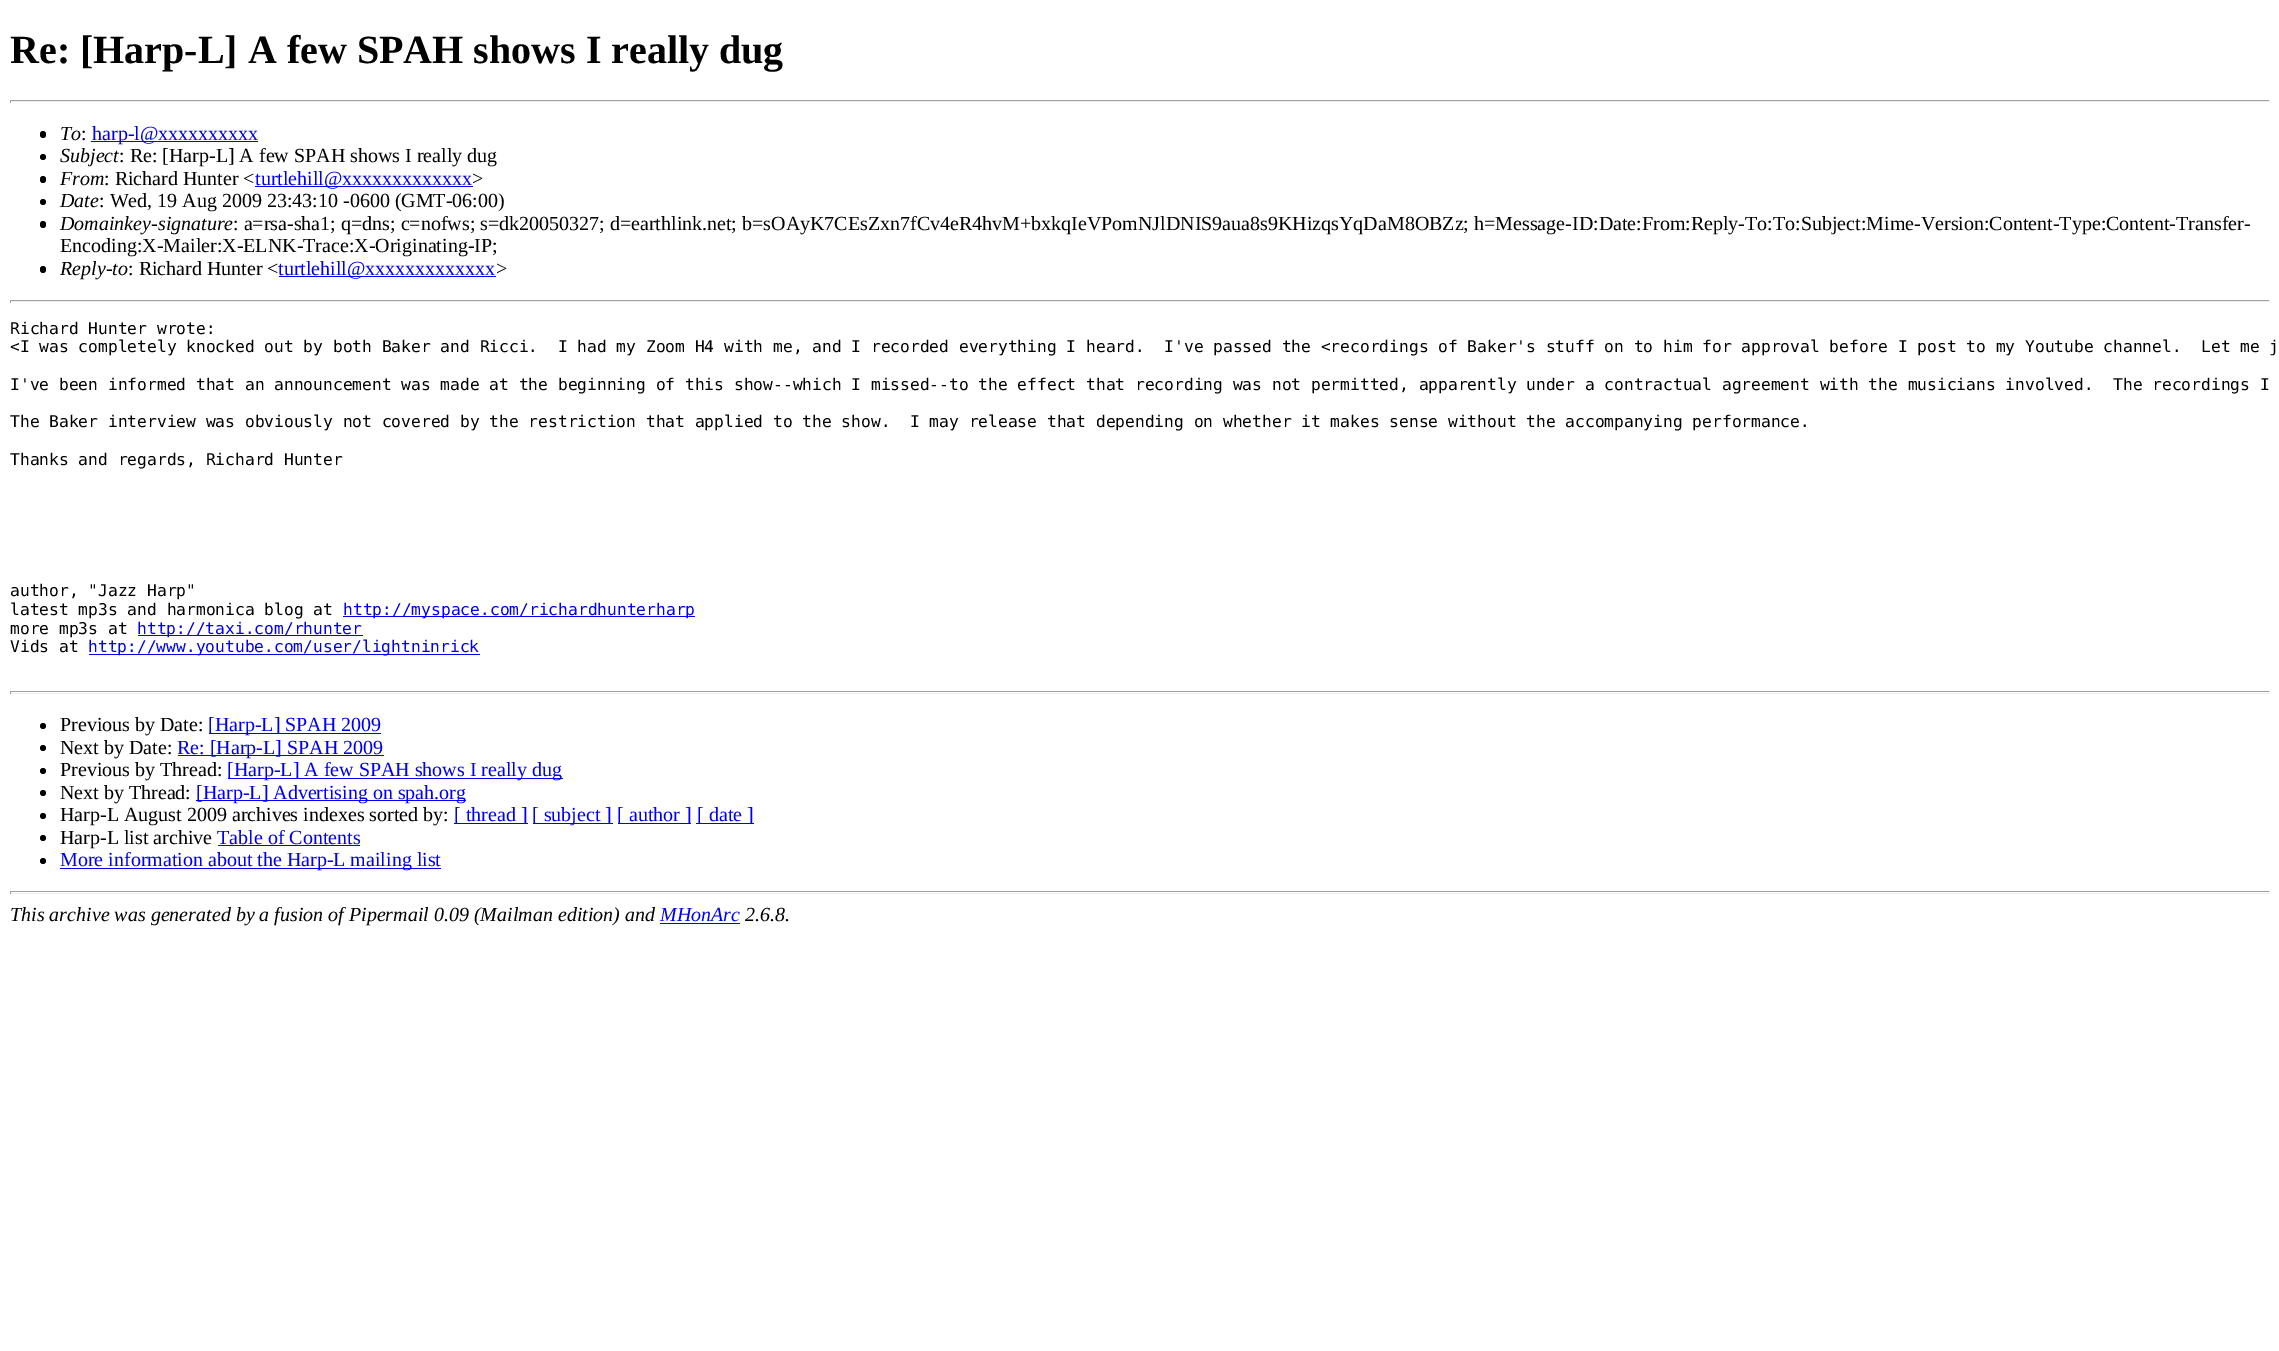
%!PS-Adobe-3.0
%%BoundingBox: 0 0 2279 1351
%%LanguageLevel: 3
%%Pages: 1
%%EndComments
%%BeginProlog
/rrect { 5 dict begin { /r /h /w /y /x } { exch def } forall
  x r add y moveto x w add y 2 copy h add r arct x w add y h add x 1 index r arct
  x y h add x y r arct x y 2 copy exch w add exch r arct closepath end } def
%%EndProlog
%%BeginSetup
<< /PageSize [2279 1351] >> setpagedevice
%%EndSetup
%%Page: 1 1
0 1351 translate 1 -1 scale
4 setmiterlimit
1 setgray
0 0 2279 1351 rectfill
0.624 setgray
10 100 2260 1 rectfill
0.933 setgray
2269 100 1 3 rectfill
10 101 2260 1 rectfill
0.624 setgray
10 100 1 3 rectfill
0 setgray
40 131 6 7 3 rrect fill
0 0 0.933 setrgbcolor
91 141 167 1 rectfill
0 setgray
newpath 43 157 3 0 360 arc closepath fill
40 176 6 7 3 rrect fill
0 0 0.933 setrgbcolor
255 186 218 1 rectfill
0 setgray
newpath 43 202 3 0 360 arc closepath fill
40 221 6 7 3 rrect fill
40 266 6 7 3 rrect fill
0 0 0.933 setrgbcolor
279 276 217 1 rectfill
0.624 setgray
10 300 2260 1 rectfill
0.933 setgray
2269 300 1 3 rectfill
10 301 2260 1 rectfill
0.624 setgray
10 300 1 3 rectfill
0 0 0.933 setrgbcolor
343 616 352 1 rectfill
138 635 225 1 rectfill
89 654 391 1 rectfill
0.624 setgray
10 691 2260 1 rectfill
0.933 setgray
2269 691 1 3 rectfill
10 693 2260 1 rectfill
0.624 setgray
10 691 1 3 rectfill
0 setgray
newpath 43 726 3 0 360 arc closepath fill
0 0 0.933 setrgbcolor
209 733 172 1 rectfill
0 setgray
newpath 43 748 3 0 360 arc closepath fill
0 0 0.933 setrgbcolor
178 755 206 1 rectfill
0 setgray
newpath 43 771 3 0 360 arc closepath fill
0 0 0.933 setrgbcolor
228 778 335 1 rectfill
0 setgray
newpath 43 793 3 0 360 arc closepath fill
0 0 0.933 setrgbcolor
196 800 270 1 rectfill
0 setgray
newpath 43 816 3 0 360 arc closepath fill
0 0 0.933 setrgbcolor
454 823 74 1 rectfill
533 823 80 1 rectfill
618 823 73 1 rectfill
696 823 58 1 rectfill
0 setgray
newpath 43 838 3 0 360 arc closepath fill
0 0 0.933 setrgbcolor
218 845 142 1 rectfill
0 setgray
newpath 43 861 3 0 360 arc closepath fill
0 0 0.933 setrgbcolor
60 868 381 1 rectfill
0.624 setgray
10 891 2260 1 rectfill
0.933 setgray
2269 891 1 3 rectfill
10 893 2260 1 rectfill
0.624 setgray
10 891 1 3 rectfill
0 0 0.933 setrgbcolor
660 923 80 1 rectfill
/LiberationSerif-Bold [40 0 0 -40 0 0] selectfont
0 setgray
10 63 moveto (Re: [Harp-L] A few SPAH shows I really dug) show
/LiberationSerif-Italic [20 0 0 -20 0 0] selectfont
60 140 moveto (To) show
/LiberationSerif-Regular [20 0 0 -20 0 0] selectfont
81 140 moveto (:) show
0 0 0.933 setrgbcolor
92 140 moveto (harp-l@xxxxxxxxxx) show
/LiberationSerif-Italic [20 0 0 -20 0 0] selectfont
0 setgray
60 162 moveto (Subject) show
/LiberationSerif-Regular [20 0 0 -20 0 0] selectfont
119 162 moveto (: Re: [Harp-L] A few SPAH shows I really dug) show
/LiberationSerif-Italic [20 0 0 -20 0 0] selectfont
60 185 moveto (From) show
/LiberationSerif-Regular [20 0 0 -20 0 0] selectfont
104 185 moveto (: Richard Hunter <) show
0 0 0.933 setrgbcolor
255 185 moveto (turtlehill@xxxxxxxxxxxxx) show
0 setgray
472 185 moveto (>) show
/LiberationSerif-Italic [20 0 0 -20 0 0] selectfont
60 207 moveto (Date) show
/LiberationSerif-Regular [20 0 0 -20 0 0] selectfont
99 207 moveto (: Wed, 19 Aug 2009 23:43:10 -0600 \(GMT-06:00\)) show
/LiberationSerif-Italic [20 0 0 -20 0 0] selectfont
60 230 moveto (Domainkey-signature) show
/LiberationSerif-Regular [20 0 0 -20 0 0] selectfont
233 230 moveto (: a=rsa-sha1; q=dns; c=nofws; s=dk20050327; d=earthlink.net; b=sOAyK7CEsZxn7fCv4eR4hvM+bxkqIeVPomNJlDNIS9aua8s9KHizqsYqDaM8OBZz; h=Message-ID:Date:From:Reply-To:To:Subject:Mime-Version:Content-Type:Content-Transfer-) show
60 252 moveto (Encoding:X-Mailer:X-ELNK-Trace:X-Originating-IP;) show
/LiberationSerif-Italic [20 0 0 -20 0 0] selectfont
60 275 moveto (Reply-to) show
/LiberationSerif-Regular [20 0 0 -20 0 0] selectfont
128 275 moveto (: Richard Hunter <) show
0 0 0.933 setrgbcolor
278 275 moveto (turtlehill@xxxxxxxxxxxxx) show
0 setgray
496 275 moveto (>) show
/DejaVuSansMono-Regular [16.25 0 0 -16.25 0 0] selectfont
10 334 moveto (Richard Hunter wrote:) show
10 352 moveto (<I was completely knocked out by both Baker and Ricci.  I had my Zoom H4 with me, and I recorded everything I heard.  I've passed the <recordings of Baker's stuff on to him for approval before I post to my Youtube channel.  Let me j) show
10 390 moveto (I've been informed that an announcement was made at the beginning of this show--which I missed--to the effect that recording was not permitted, apparently under a contractual agreement with the musicians involved.  The recordings I) show
10 427 moveto (The Baker interview was obviously not covered by the restriction that applied to the show.  I may release that depending on whether it makes sense without the accompanying performance.) show
10 465 moveto (Thanks and regards, Richard Hunter) show
10 596 moveto (author, "Jazz Harp") show
10 615 moveto (latest mp3s and harmonica blog at) show
0 0 0.933 setrgbcolor
343 615 moveto (http://myspace.com/richardhunterharp) show
0 setgray
10 634 moveto (more mp3s at) show
0 0 0.933 setrgbcolor
137 634 moveto (http://taxi.com/rhunter) show
0 setgray
10 652 moveto (Vids at) show
0 0 0.933 setrgbcolor
88 652 moveto (http://www.youtube.com/user/lightninrick) show
/LiberationSerif-Regular [20 0 0 -20 0 0] selectfont
0 setgray
60 731 moveto (Previous by Date:) show
0 0 0.933 setrgbcolor
208 731 moveto ([Harp-L] SPAH 2009) show
0 setgray
60 754 moveto (Next by Date:) show
0 0 0.933 setrgbcolor
177 754 moveto (Re: [Harp-L] SPAH 2009) show
0 setgray
60 776 moveto (Previous by Thread:) show
0 0 0.933 setrgbcolor
227 776 moveto ([Harp-L] A few SPAH shows I really dug) show
0 setgray
60 799 moveto (Next by Thread:) show
0 0 0.933 setrgbcolor
196 799 moveto ([Harp-L] Advertising on spah.org) show
0 setgray
60 821 moveto (Harp-L August 2009 archives indexes sorted by:) show
0 0 0.933 setrgbcolor
454 821 moveto ([ thread ]) show
532 821 moveto ([ subject ]) show
617 821 moveto ([ author ]) show
697 821 moveto ([ date ]) show
0 setgray
60 844 moveto (Harp-L list archive) show
0 0 0.933 setrgbcolor
217 844 moveto (Table of Contents) show
60 866 moveto (More information about the Harp-L mailing list) show
/LiberationSerif-Italic [20 0 0 -20 0 0] selectfont
0 setgray
10 921 moveto (This archive was generated by a fusion of Pipermail 0.09 \(Mailman edition\) and) show
0 0 0.933 setrgbcolor
660 921 moveto (MHonArc) show
0 setgray
745 921 moveto (2.6.8.) show
showpage
%%EOF
